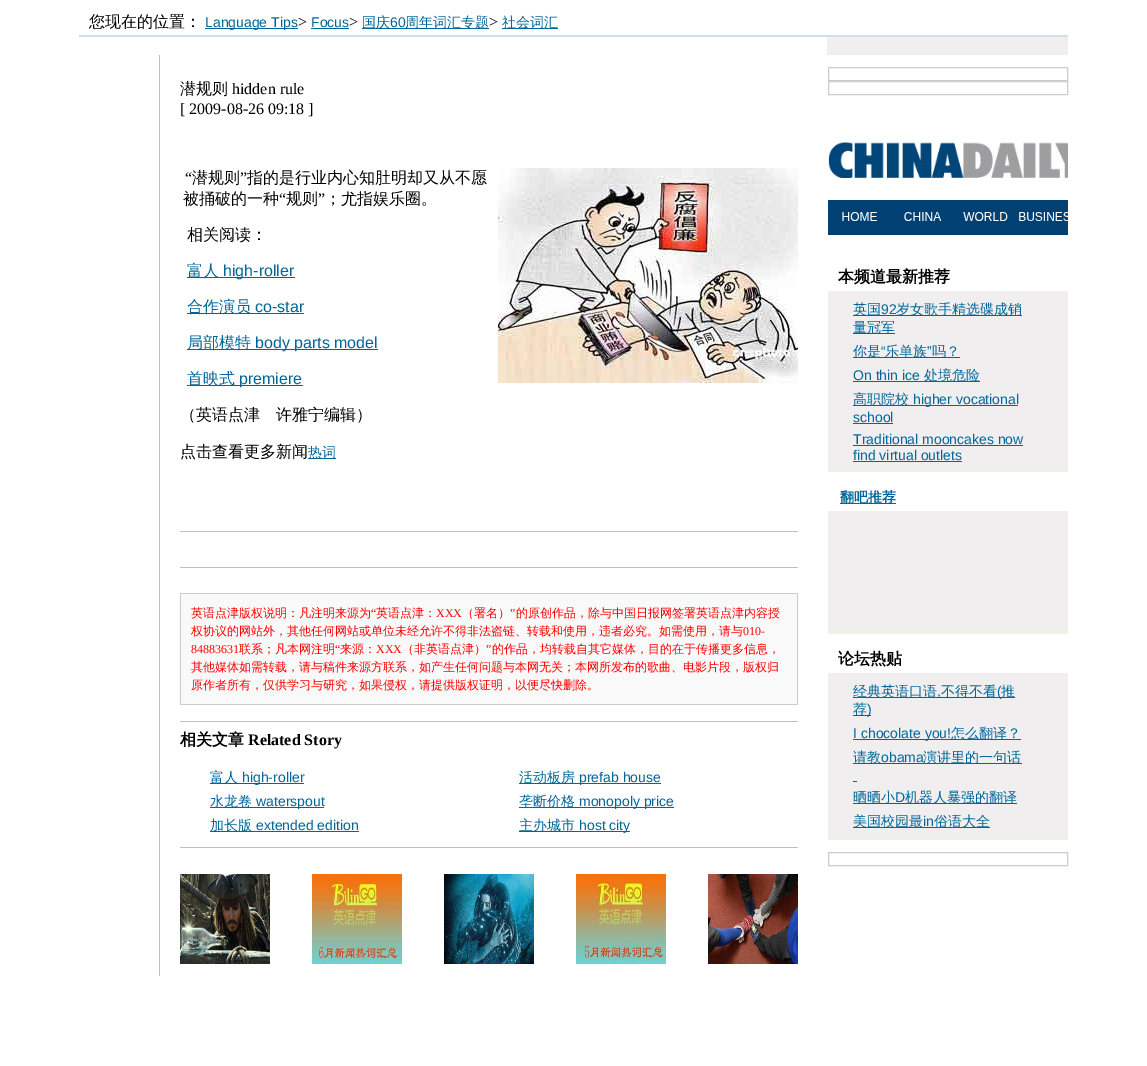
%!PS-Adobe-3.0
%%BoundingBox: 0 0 1147 1066
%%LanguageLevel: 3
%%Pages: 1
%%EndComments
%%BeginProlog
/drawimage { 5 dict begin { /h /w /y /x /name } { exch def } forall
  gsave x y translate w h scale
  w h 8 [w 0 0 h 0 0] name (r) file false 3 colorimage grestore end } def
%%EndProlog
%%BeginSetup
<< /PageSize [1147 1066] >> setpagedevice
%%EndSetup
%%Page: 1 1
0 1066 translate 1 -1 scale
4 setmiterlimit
1 setgray
0 0 1147 1066 rectfill
0 0.4 0.6 setrgbcolor
205 28 93 1 rectfill
311 28 38 1 rectfill
362 28 127 1 rectfill
502 28 56 1 rectfill
0.812 0.875 0.922 setrgbcolor
79 35 989 2 rectfill
0.941 0.933 0.937 setrgbcolor
827 37 241 18 rectfill
0.753 setgray
159 55 1 921 rectfill
(images/1.raw) 498 168 300 215 drawimage
0 0.4 0.6 setrgbcolor
187 277 108 1 rectfill
187 313 117 1 rectfill
187 349 191 1 rectfill
187 385 116 1 rectfill
308 458 28 1 rectfill
0.753 setgray
180 531 618 1 rectfill
180 567 618 1 rectfill
0.8 setgray
180 593 618 112 rectfill
0.976 setgray
181 594 616 110 rectfill
0.753 setgray
180 721 618 1 rectfill
0 0.4 0.6 setrgbcolor
210 783 94 1 rectfill
519 783 142 1 rectfill
210 807 114 1 rectfill
519 807 155 1 rectfill
210 831 149 1 rectfill
519 831 111 1 rectfill
0.753 setgray
180 847 618 1 rectfill
(images/2.raw) 180 874 618 90 drawimage
0.8 setgray
828.5 67.5 239 13 rectstroke
828.5 81.5 239 13 rectstroke
(images/3.raw) 828 141 240 94 drawimage
0.941 0.933 0.937 setrgbcolor
828 291 240 178 rectfill
0 0.4 0.6 setrgbcolor
853 315 169 1 rectfill
853 333 42 1 rectfill
853 357 107 1 rectfill
853 381 127 1 rectfill
853 405 165 1 rectfill
853 423 40 1 rectfill
853 445 170 1 rectfill
853 461 109 1 rectfill
0.949 0.945 0.902 setrgbcolor
828 469 240 3 rectfill
0 0.4 0.6 setrgbcolor
840 503 56 1 rectfill
0.941 0.933 0.937 setrgbcolor
828 511 240 120 rectfill
0.949 0.945 0.902 setrgbcolor
828 631 240 3 rectfill
0.941 0.933 0.937 setrgbcolor
828 673 240 164 rectfill
0 0.4 0.6 setrgbcolor
853 697 162 1 rectfill
853 715 18 1 rectfill
853 739 168 1 rectfill
853 781 4 1 rectfill
853 763 169 1 rectfill
853 803 164 1 rectfill
853 827 137 1 rectfill
0.949 0.945 0.902 setrgbcolor
828 837 240 3 rectfill
0.8 setgray
828.5 852.5 239 13 rectstroke
/WenQuanYiZenHei-Medium [16 0 0 -16 0 0] selectfont
0 setgray
89 27 moveto (您现在的位置：) show
/LiberationSans-Regular [14 0 0 -14 0 0] selectfont
0 0.4 0.6 setrgbcolor
205 27 moveto (Language Tips) show
/LiberationSerif-Regular [16 0 0 -16 0 0] selectfont
0 setgray
298 27 moveto (>) show
/LiberationSans-Regular [14 0 0 -14 0 0] selectfont
0 0.4 0.6 setrgbcolor
311 27 moveto (Focus) show
/LiberationSerif-Regular [16 0 0 -16 0 0] selectfont
0 setgray
349 27 moveto (>) show
/WenQuanYiZenHei-Medium [14 0 0 -14 0 0] selectfont
0 0.4 0.6 setrgbcolor
362 27 moveto (国庆) show
/LiberationSans-Regular [14 0 0 -14 0 0] selectfont
390 27 moveto (60) show
/WenQuanYiZenHei-Medium [14 0 0 -14 0 0] selectfont
405 27 moveto (周年词汇专题) show
/LiberationSerif-Regular [16 0 0 -16 0 0] selectfont
0 setgray
489 27 moveto (>) show
/WenQuanYiZenHei-Medium [14 0 0 -14 0 0] selectfont
0 0.4 0.6 setrgbcolor
502 27 moveto (社会词汇) show
/WenQuanYiZenHei-Medium [16 0 0 -16 0 0] selectfont
0 setgray
180 94 moveto (潜规则) show
/LiberationSerif-Regular [16 0 0 -16 0 0] selectfont
232 94 moveto (hidden rule) show
180 114 moveto ([ 2009-08-26 09:18 ]) show
185 183 moveto (“) show
/WenQuanYiZenHei-Medium [16 0 0 -16 0 0] selectfont
192 183 moveto (潜规则) show
/LiberationSerif-Regular [16 0 0 -16 0 0] selectfont
240 183 moveto (”) show
/WenQuanYiZenHei-Medium [16 0 0 -16 0 0] selectfont
247 183 moveto (指的是行业内心知肚明却又从不愿) show
183 204 moveto (被捅破的一种) show
/LiberationSerif-Regular [16 0 0 -16 0 0] selectfont
279 204 moveto (“) show
/WenQuanYiZenHei-Medium [16 0 0 -16 0 0] selectfont
286 204 moveto (规则) show
/LiberationSerif-Regular [16 0 0 -16 0 0] selectfont
318 204 moveto (”) show
/WenQuanYiZenHei-Medium [16 0 0 -16 0 0] selectfont
325 204 moveto (；尤指娱乐圈。) show
187 240 moveto (相关阅读：) show
0 0.4 0.6 setrgbcolor
187 276 moveto (富人) show
/LiberationSans-Regular [16 0 0 -16 0 0] selectfont
223 276 moveto (high-roller) show
/WenQuanYiZenHei-Medium [16 0 0 -16 0 0] selectfont
187 312 moveto (合作演员) show
/LiberationSans-Regular [16 0 0 -16 0 0] selectfont
255 312 moveto (co-star) show
/WenQuanYiZenHei-Medium [16 0 0 -16 0 0] selectfont
187 348 moveto (局部模特) show
/LiberationSans-Regular [16 0 0 -16 0 0] selectfont
255 348 moveto (body parts model) show
/WenQuanYiZenHei-Medium [16 0 0 -16 0 0] selectfont
187 384 moveto (首映式) show
/LiberationSans-Regular [16 0 0 -16 0 0] selectfont
239 384 moveto (premiere) show
/WenQuanYiZenHei-Medium [16 0 0 -16 0 0] selectfont
0 setgray
180 420 moveto (（英语点津　许雅宁编辑）) show
180 457 moveto (点击查看更多新闻) show
/WenQuanYiZenHei-Medium [14 0 0 -14 0 0] selectfont
0 0.4 0.6 setrgbcolor
308 457 moveto (热词) show
/WenQuanYiZenHei-Medium [12 0 0 -12 0 0] selectfont
1 0 0 setrgbcolor
191 617 moveto (英语点津版权说明：凡注明来源为) show
/LiberationSerif-Regular [12 0 0 -12 0 0] selectfont
371 617 moveto (“) show
/WenQuanYiZenHei-Medium [12 0 0 -12 0 0] selectfont
376 617 moveto (英语点津：) show
/LiberationSerif-Regular [12 0 0 -12 0 0] selectfont
436 617 moveto (XXX) show
/WenQuanYiZenHei-Medium [12 0 0 -12 0 0] selectfont
462 617 moveto (（署名）) show
/LiberationSerif-Regular [12 0 0 -12 0 0] selectfont
510 617 moveto (”) show
/WenQuanYiZenHei-Medium [12 0 0 -12 0 0] selectfont
516 617 moveto (的原创作品，除与中国日报网签署英语点津内容授) show
191 635 moveto (权协议的网站外，其他任何网站或单位未经允许不得非法盗链、转载和使用，违者必究。如需使用，请与) show
/LiberationSerif-Regular [12 0 0 -12 0 0] selectfont
743 635 moveto (010-) show
191 653 moveto (84883631) show
/WenQuanYiZenHei-Medium [12 0 0 -12 0 0] selectfont
239 653 moveto (联系；凡本网注明) show
/LiberationSerif-Regular [12 0 0 -12 0 0] selectfont
335 653 moveto (“) show
/WenQuanYiZenHei-Medium [12 0 0 -12 0 0] selectfont
340 653 moveto (来源：) show
/LiberationSerif-Regular [12 0 0 -12 0 0] selectfont
376 653 moveto (XXX) show
/WenQuanYiZenHei-Medium [12 0 0 -12 0 0] selectfont
402 653 moveto (（非英语点津）) show
/LiberationSerif-Regular [12 0 0 -12 0 0] selectfont
486 653 moveto (”) show
/WenQuanYiZenHei-Medium [12 0 0 -12 0 0] selectfont
492 653 moveto (的作品，均转载自其它媒体，目的在于传播更多信息，) show
191 671 moveto (其他媒体如需转载，请与稿件来源方联系，如产生任何问题与本网无关；本网所发布的歌曲、电影片段，版权归) show
191 689 moveto (原作者所有，仅供学习与研究，如果侵权，请提供版权证明，以便尽快删除。) show
/WenQuanYiZenHei-Bold [16 0 0 -16 0 0] selectfont
0 setgray
180 745 moveto (相关文章) show
/LiberationSerif-Bold [16 0 0 -16 0 0] selectfont
248 745 moveto (Related Story) show
/WenQuanYiZenHei-Medium [14 0 0 -14 0 0] selectfont
0 0.4 0.6 setrgbcolor
210 782 moveto (富人) show
/LiberationSans-Regular [14 0 0 -14 0 0] selectfont
242 782 moveto (high-roller) show
/WenQuanYiZenHei-Medium [14 0 0 -14 0 0] selectfont
519 782 moveto (活动板房) show
/LiberationSans-Regular [14 0 0 -14 0 0] selectfont
579 782 moveto (prefab house) show
/WenQuanYiZenHei-Medium [14 0 0 -14 0 0] selectfont
210 806 moveto (水龙卷) show
/LiberationSans-Regular [14 0 0 -14 0 0] selectfont
256 806 moveto (waterspout) show
/WenQuanYiZenHei-Medium [14 0 0 -14 0 0] selectfont
519 806 moveto (垄断价格) show
/LiberationSans-Regular [14 0 0 -14 0 0] selectfont
579 806 moveto (monopoly price) show
/WenQuanYiZenHei-Medium [14 0 0 -14 0 0] selectfont
210 830 moveto (加长版) show
/LiberationSans-Regular [14 0 0 -14 0 0] selectfont
256 830 moveto (extended edition) show
/WenQuanYiZenHei-Medium [14 0 0 -14 0 0] selectfont
519 830 moveto (主办城市) show
/LiberationSans-Regular [14 0 0 -14 0 0] selectfont
579 830 moveto (host city) show
/WenQuanYiZenHei-Bold [16 0 0 -16 0 0] selectfont
0 setgray
838 282 moveto (本频道最新推荐) show
/WenQuanYiZenHei-Medium [14 0 0 -14 0 0] selectfont
0 0.4 0.6 setrgbcolor
853 314 moveto (英国) show
/LiberationSans-Regular [14 0 0 -14 0 0] selectfont
881 314 moveto (92) show
/WenQuanYiZenHei-Medium [14 0 0 -14 0 0] selectfont
896 314 moveto (岁女歌手精选碟成销) show
853 332 moveto (量冠军) show
853 356 moveto (你是) show
/LiberationSans-Regular [14 0 0 -14 0 0] selectfont
881 356 moveto (“) show
/WenQuanYiZenHei-Medium [14 0 0 -14 0 0] selectfont
885 356 moveto (乐单族) show
/LiberationSans-Regular [14 0 0 -14 0 0] selectfont
927 356 moveto (”) show
/WenQuanYiZenHei-Medium [14 0 0 -14 0 0] selectfont
932 356 moveto (吗？) show
/LiberationSans-Regular [14 0 0 -14 0 0] selectfont
853 380 moveto (On thin ice) show
/WenQuanYiZenHei-Medium [14 0 0 -14 0 0] selectfont
924 380 moveto (处境危险) show
853 404 moveto (高职院校) show
/LiberationSans-Regular [14 0 0 -14 0 0] selectfont
913 404 moveto (higher vocational) show
853 422 moveto (school) show
853 444 moveto (Traditional mooncakes now) show
853 460 moveto (find virtual outlets) show
/WenQuanYiZenHei-Bold [14 0 0 -14 0 0] selectfont
840 502 moveto (翻吧推荐) show
/WenQuanYiZenHei-Bold [16 0 0 -16 0 0] selectfont
0 setgray
838 664 moveto (论坛热贴) show
/WenQuanYiZenHei-Medium [14 0 0 -14 0 0] selectfont
0 0.4 0.6 setrgbcolor
853 696 moveto (经典英语口语) show
/LiberationSans-Regular [14 0 0 -14 0 0] selectfont
937 696 moveto (,) show
/WenQuanYiZenHei-Medium [14 0 0 -14 0 0] selectfont
941 696 moveto (不得不看) show
/LiberationSans-Regular [14 0 0 -14 0 0] selectfont
997 696 moveto (\() show
/WenQuanYiZenHei-Medium [14 0 0 -14 0 0] selectfont
1001 696 moveto (推) show
853 714 moveto (荐) show
/LiberationSans-Regular [14 0 0 -14 0 0] selectfont
867 714 moveto (\)) show
853 738 moveto (I chocolate you!) show
/WenQuanYiZenHei-Medium [14 0 0 -14 0 0] selectfont
951 738 moveto (怎么翻译？) show
853 762 moveto (请教) show
/LiberationSans-Regular [14 0 0 -14 0 0] selectfont
881 762 moveto (obama) show
/WenQuanYiZenHei-Medium [14 0 0 -14 0 0] selectfont
923 762 moveto (演讲里的一句话) show
853 802 moveto (晒晒小) show
/LiberationSans-Regular [14 0 0 -14 0 0] selectfont
895 802 moveto (D) show
/WenQuanYiZenHei-Medium [14 0 0 -14 0 0] selectfont
905 802 moveto (机器人暴强的翻译) show
853 826 moveto (美国校园最) show
/LiberationSans-Regular [14 0 0 -14 0 0] selectfont
923 826 moveto (in) show
/WenQuanYiZenHei-Medium [14 0 0 -14 0 0] selectfont
934 826 moveto (俗语大全) show
showpage
%%EOF
